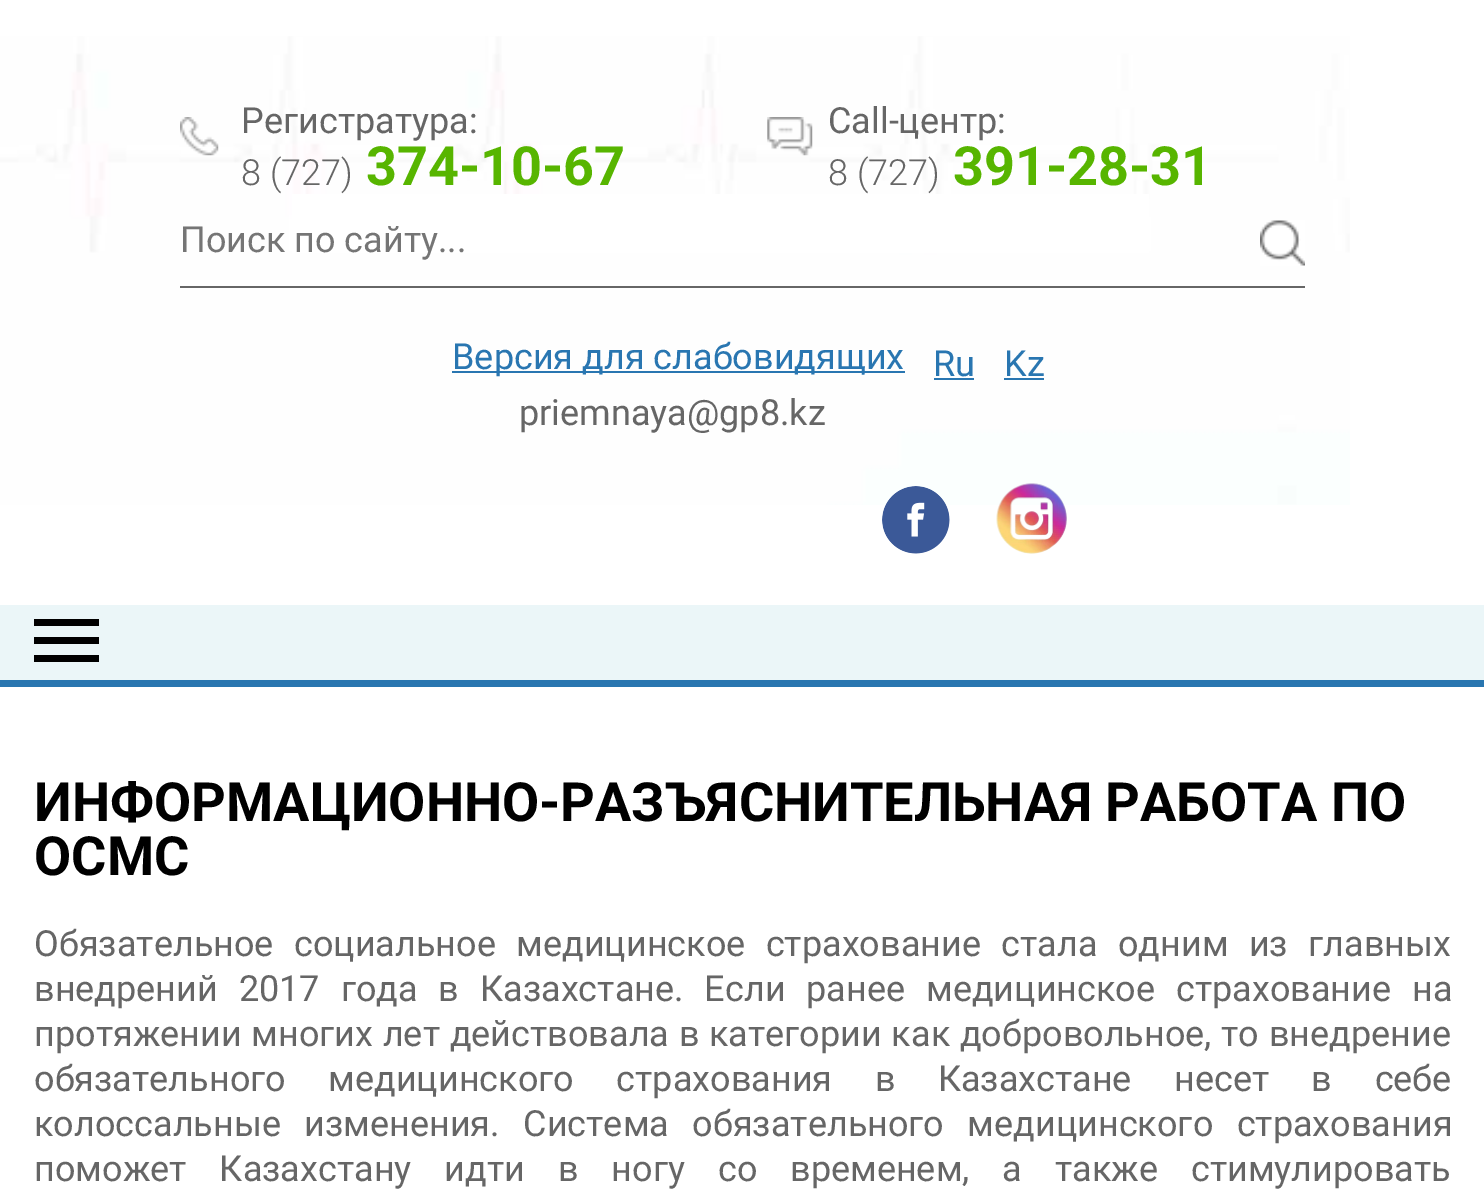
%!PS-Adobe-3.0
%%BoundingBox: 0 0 1484 1194
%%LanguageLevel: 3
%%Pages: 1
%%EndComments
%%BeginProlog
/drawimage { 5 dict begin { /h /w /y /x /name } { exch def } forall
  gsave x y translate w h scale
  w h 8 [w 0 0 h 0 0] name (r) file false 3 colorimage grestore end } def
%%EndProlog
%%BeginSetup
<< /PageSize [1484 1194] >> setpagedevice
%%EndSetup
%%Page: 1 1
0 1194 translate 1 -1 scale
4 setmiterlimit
1 setgray
0 0 1484 1194 rectfill
(images/1.raw) 0 36 1350 469 drawimage
(images/2.raw) 180 117 39 39 drawimage
(images/3.raw) 767 117 46 39 drawimage
292 194 857 59 rectfill
0.4 setgray
180 286 1125 2 rectfill
(images/4.raw) 1260 220 45 46 drawimage
0.161 0.463 0.694 setrgbcolor
452 371 453 2 rectfill
934 378 40 2 rectfill
1004 378 40 2 rectfill
(images/5.raw) 882 486 68 68 drawimage
(images/6.raw) 996 483 71 71 drawimage
0.922 0.965 0.973 setrgbcolor
0 605 1484 75 rectfill
0.161 0.463 0.69 setrgbcolor
0 680 1484 7 rectfill
0 setgray
34 637 65 7 rectfill
34 619 65 7 rectfill
34 655 65 7 rectfill
/Roboto-Regular [36 0 0 -36 0 0] selectfont
0.4 setgray
241 133 moveto (Регистратура:) show
/Roboto-Light [36 0 0 -36 0 0] selectfont
241 185 moveto (8 \(727\)) show
/Roboto-Bold [54 0 0 -54 0 0] selectfont
0.341 0.71 0 setrgbcolor
366 185 moveto (374-10-67) show
/Roboto-Regular [36 0 0 -36 0 0] selectfont
0.4 setgray
828 133 moveto (Call-центр:) show
/Roboto-Light [36 0 0 -36 0 0] selectfont
828 185 moveto (8 \(727\)) show
/Roboto-Bold [54 0 0 -54 0 0] selectfont
0.341 0.71 0 setrgbcolor
953 185 moveto (391-28-31) show
/Roboto-Regular [36 0 0 -36 0 0] selectfont
0.459 setgray
180 252 moveto (Поиск по сайту...) show
0.161 0.463 0.694 setrgbcolor
452 369 moveto (Версия для слабовидящих) show
0.4 setgray
519 425 moveto (priemnaya@gp8.kz) show
0.161 0.463 0.694 setrgbcolor
933 376 moveto (Ru) show
1004 376 moveto (Kz) show
/Roboto-Bold [54 0 0 -54 0 0] selectfont
0 setgray
34 821 moveto (ИНФОРМАЦИОННО-РАЗЪЯСНИТЕЛЬНАЯ РАБОТА ПО) show
34 875 moveto (ОСМС) show
/Roboto-Regular [36 0 0 -36 0 0] selectfont
0.4 setgray
34 956 moveto 11.5 0 32 (Обязательное социальное медицинское страхование стала одним из главных) widthshow
34 1001 moveto 12 0 32 (внедрений 2017 года в Казахстане. Если ранее медицинское страхование на) widthshow
34 1046 moveto 0.75 0 32 (протяжении многих лет действовала в категории как добровольное, то внедрение) widthshow
34 1091 moveto 33.5 0 32 (обязательного медицинского страхования в Казахстане несет в себе) widthshow
34 1136 moveto 14.5 0 32 (колоссальные изменения. Система обязательного медицинского страхования) widthshow
34 1181 moveto 24 0 32 (поможет Казахстану идти в ногу со временем, а также стимулировать) widthshow
showpage
%%EOF
